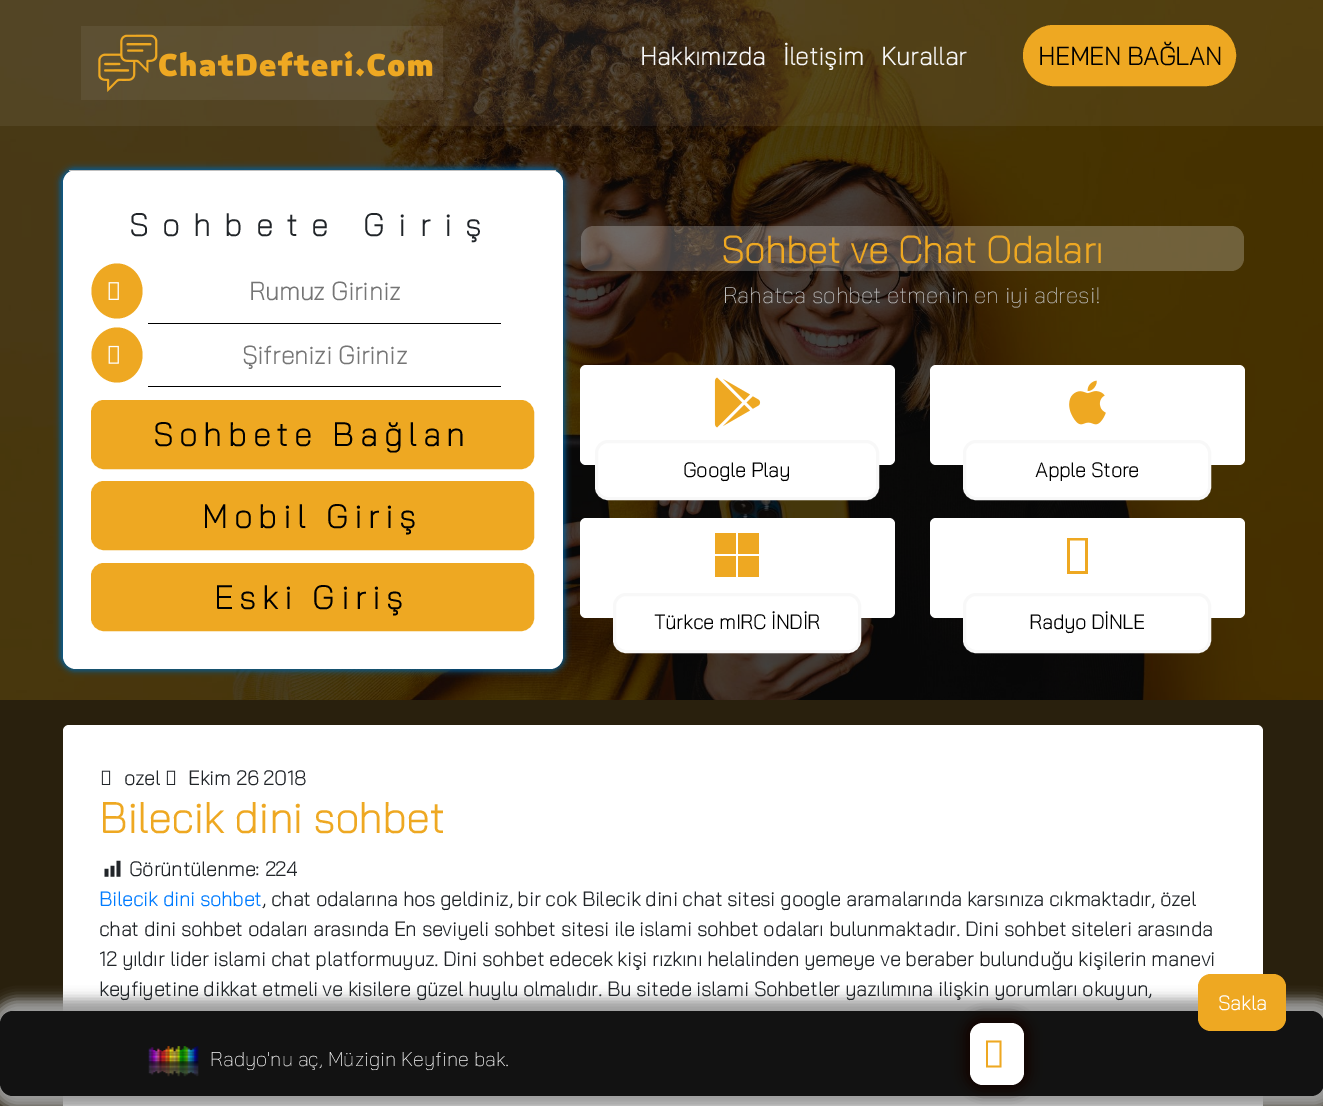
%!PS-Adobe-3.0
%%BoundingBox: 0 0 1323 1106
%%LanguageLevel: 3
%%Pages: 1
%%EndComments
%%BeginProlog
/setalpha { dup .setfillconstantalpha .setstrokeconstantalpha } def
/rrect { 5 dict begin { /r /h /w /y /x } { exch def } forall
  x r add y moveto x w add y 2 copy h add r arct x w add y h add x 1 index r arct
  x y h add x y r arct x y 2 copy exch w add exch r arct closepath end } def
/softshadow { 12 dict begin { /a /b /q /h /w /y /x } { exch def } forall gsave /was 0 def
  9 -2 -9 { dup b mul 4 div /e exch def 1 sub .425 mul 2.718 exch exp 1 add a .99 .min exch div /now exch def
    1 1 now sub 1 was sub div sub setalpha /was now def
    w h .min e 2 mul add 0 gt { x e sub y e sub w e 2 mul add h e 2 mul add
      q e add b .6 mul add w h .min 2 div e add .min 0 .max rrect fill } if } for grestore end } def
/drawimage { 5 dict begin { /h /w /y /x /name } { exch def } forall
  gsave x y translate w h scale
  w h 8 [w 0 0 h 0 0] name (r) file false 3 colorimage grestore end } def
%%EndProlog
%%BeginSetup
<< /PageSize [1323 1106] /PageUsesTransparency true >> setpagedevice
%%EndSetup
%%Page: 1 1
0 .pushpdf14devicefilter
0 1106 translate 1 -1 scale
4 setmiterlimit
0.161 0.125 0.051 setrgbcolor
0 0 1323 1106 rectfill
0 setgray
0 0 1323 700 rectfill
(images/1.raw) 0 0 1323 700 drawimage
0.06 setalpha
1 setgray
0 0 1323 126 rectfill
81 26 362 74 rectfill
1 setalpha
(images/2.raw) 98 34 335 58 drawimage
0.933 0.659 0.133 setrgbcolor
1024.5 26.5 210 58 29 rrect gsave fill grestore
3 setlinewidth
stroke
0.004 0.369 0.608 setrgbcolor
60 168 505 503 15 3 1 softshadow
1 setgray
63 170 500 499 13 rrect fill
0.753 setgray
69 170 487 1 rectfill
0.933 0.659 0.133 setrgbcolor
newpath 117 263.5 moveto 131 263.5 142.5 276 142.5 291 curveto 142.5 306 131 318.5 117 318.5 curveto 103 318.5 91.5 306 91.5 291 curveto 91.5 276 103 263.5 117 263.5 curveto closepath fill
(images/3.raw) 108 282 11 18 drawimage
0 setgray
148 323 353 1 rectfill
0.933 0.659 0.133 setrgbcolor
newpath 117 327.5 moveto 131 327.5 142.5 340 142.5 355 curveto 142.5 370 131 382.5 117 382.5 curveto 103 382.5 91.5 370 91.5 355 curveto 91.5 340 103 327.5 117 327.5 curveto closepath fill
(images/4.raw) 108 345 11 19 drawimage
0 setgray
148 386 353 1 rectfill
0.933 0.659 0.133 setrgbcolor
93 402 439 65 11 rrect gsave fill grestore
4 setlinewidth
stroke
93 483 439 65 11 rrect gsave fill grestore
stroke
93 565 439 64 11 rrect gsave fill grestore
stroke
0.23 setalpha
1 setgray
581 226 663 45 13 rrect fill
1 setalpha
580 365 315 100 6 rrect fill
(images/5.raw) 714 377 47 51 drawimage
596.5 441.5 281 57 11.5 rrect gsave fill grestore
0.973 setgray
3 setlinewidth
stroke
1 setgray
930 365 315 100 6 rrect fill
(images/6.raw) 1069 380 37 45 drawimage
964.5 441.5 245 57 11.5 rrect gsave fill grestore
0.973 setgray
stroke
1 setgray
580 518 315 100 6 rrect fill
0.933 0.659 0.133 setrgbcolor
newpath 715 533 moveto 736 533 lineto 736 554 lineto 715 554 lineto closepath 738 533 moveto 759 533 lineto 759 554 lineto 738 554 lineto closepath 715 556 moveto 736 556 lineto 736 577 lineto 715 577 lineto closepath 738 556 moveto 759 556 lineto 759 577 lineto 738 577 lineto closepath fill
1 setgray
614.5 594.5 245 57 11.5 rrect gsave fill grestore
0.973 setgray
stroke
1 setgray
930 518 315 100 6 rrect fill
0.933 0.659 0.133 setrgbcolor
newpath 1067 574 moveto 1067 538 lineto 1088 538 lineto 1088 574 lineto closepath 1070 571 moveto 1085 571 lineto 1085 540.5 lineto 1070 540.5 lineto closepath fill
1 setgray
964.5 594.5 245 57 11.5 rrect gsave fill grestore
0.973 setgray
stroke
1 setgray
63 725 1200 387 6 rrect fill
(images/7.raw) 166 770 10 15 drawimage
(images/8.raw) 104 860 17 17 drawimage
(images/7.raw) 101 770 10 15 drawimage
0.616 setgray
-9 999 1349 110 25 6 1 softshadow
0.071 setgray
0 1011 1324 85 13 rrect fill
0.933 0.659 0.133 setrgbcolor
1198 974 88 57 13 rrect fill
(images/9.raw) 148 1046 51 31 drawimage
0.067 0.016 0 setrgbcolor
964 1016 66 75 19 6 1 softshadow
1 setgray
970 1023 54 62 13 rrect fill
0.933 0.659 0.133 setrgbcolor
newpath 986 1067.5 moveto 986 1040.5 lineto 1001.5 1040.5 lineto 1001.5 1067.5 lineto closepath 988 1065.5 moveto 999.5 1065.5 lineto 999.5 1042.5 lineto 988 1042.5 lineto closepath fill
/BaiJamjuree-Bold [25 0 0 -25 0 0] selectfont
0.969 setgray
640 65 moveto (Hakkımızda) show
783 65 moveto (İletişim) show
881 65 moveto (Kurallar) show
0 setgray
1038 65 moveto (HEMEN BAĞLAN) show
/BaiJamjuree-Bold [31.25 0 0 -31.25 0 0] selectfont
0.129 0.145 0.161 setrgbcolor
129 236 moveto 13.75 0 (Sohbete Giriş) ashow
/BaiJamjuree-Bold [25 0 0 -25 0 0] selectfont
0.459 setgray
249 300 moveto (Rumuz Giriniz) show
242 364 moveto (Şifrenizi Giriniz) show
/BaiJamjuree-Bold [32.5 0 0 -32.5 0 0] selectfont
0 setgray
153 446 moveto 6.25 0 (Sohbete Bağlan) ashow
202 528 moveto 6.25 0 (Mobil Giriş) ashow
214 609 moveto 6.25 0 (Eski Giriş) ashow
/BaiJamjuree-Bold [37.5 0 0 -37.5 0 0] selectfont
0.933 0.659 0.133 setrgbcolor
721 263 moveto (Sohbet ve Chat Odaları) show
/BaiJamjuree-ExtraLight [22.5 0 0 -22.5 0 0] selectfont
0.753 setgray
723 303 moveto (Rahatca sohbet etmenin en iyi adresi!) show
/BaiJamjuree-Bold [20 0 0 -20 0 0] selectfont
0 setgray
683 477 moveto (Google Play) show
1035 477 moveto (Apple Store) show
654 629 moveto (Türkce mIRC İNDİR) show
1029 629 moveto (Radyo DİNLE) show
0.129 0.145 0.161 setrgbcolor
188 785 moveto (Ekim 26 2018) show
/BaiJamjuree-Bold [42.5 0 0 -42.5 0 0] selectfont
0.933 0.659 0.133 setrgbcolor
99 833 moveto (Bilecik dini sohbet) show
/BaiJamjuree-Bold [20 0 0 -20 0 0] selectfont
0.129 0.145 0.161 setrgbcolor
129 876 moveto (Görüntülenme: 224) show
0 0.482 1 setrgbcolor
99 906 moveto (Bilecik dini sohbet) show
0.129 0.145 0.161 setrgbcolor
262 906 moveto (, chat odalarına hos geldiniz, bir cok Bilecik dini chat sitesi google aramalarında karsınıza cıkmaktadır, özel) show
99 936 moveto (chat dini sohbet odaları arasında En seviyeli sohbet sitesi ile islami sohbet odaları bulunmaktadır. Dini sohbet siteleri arasında) show
99 966 moveto (12 yıldır lider islami chat platformuyuz. Dini sohbet edecek kişi rızkını helalinden yemeye ve beraber bulunduğu kişilerin manevi) show
99 996 moveto (keyfiyetine dikkat etmeli ve kisilere güzel huylu olmalıdır. Bu sitede islami Sohbetler yazılımına ilişkin yorumları okuyun,) show
124 785 moveto (ozel) show
1 setgray
1218 1010 moveto (Sakla) show
/BaiJamjuree-ExtraLight [20 0 0 -20 0 0] selectfont
210 1066 moveto (Radyo'nu aç, Müzigin Keyfine bak.) show
.poppdf14devicefilter showpage
%%EOF
